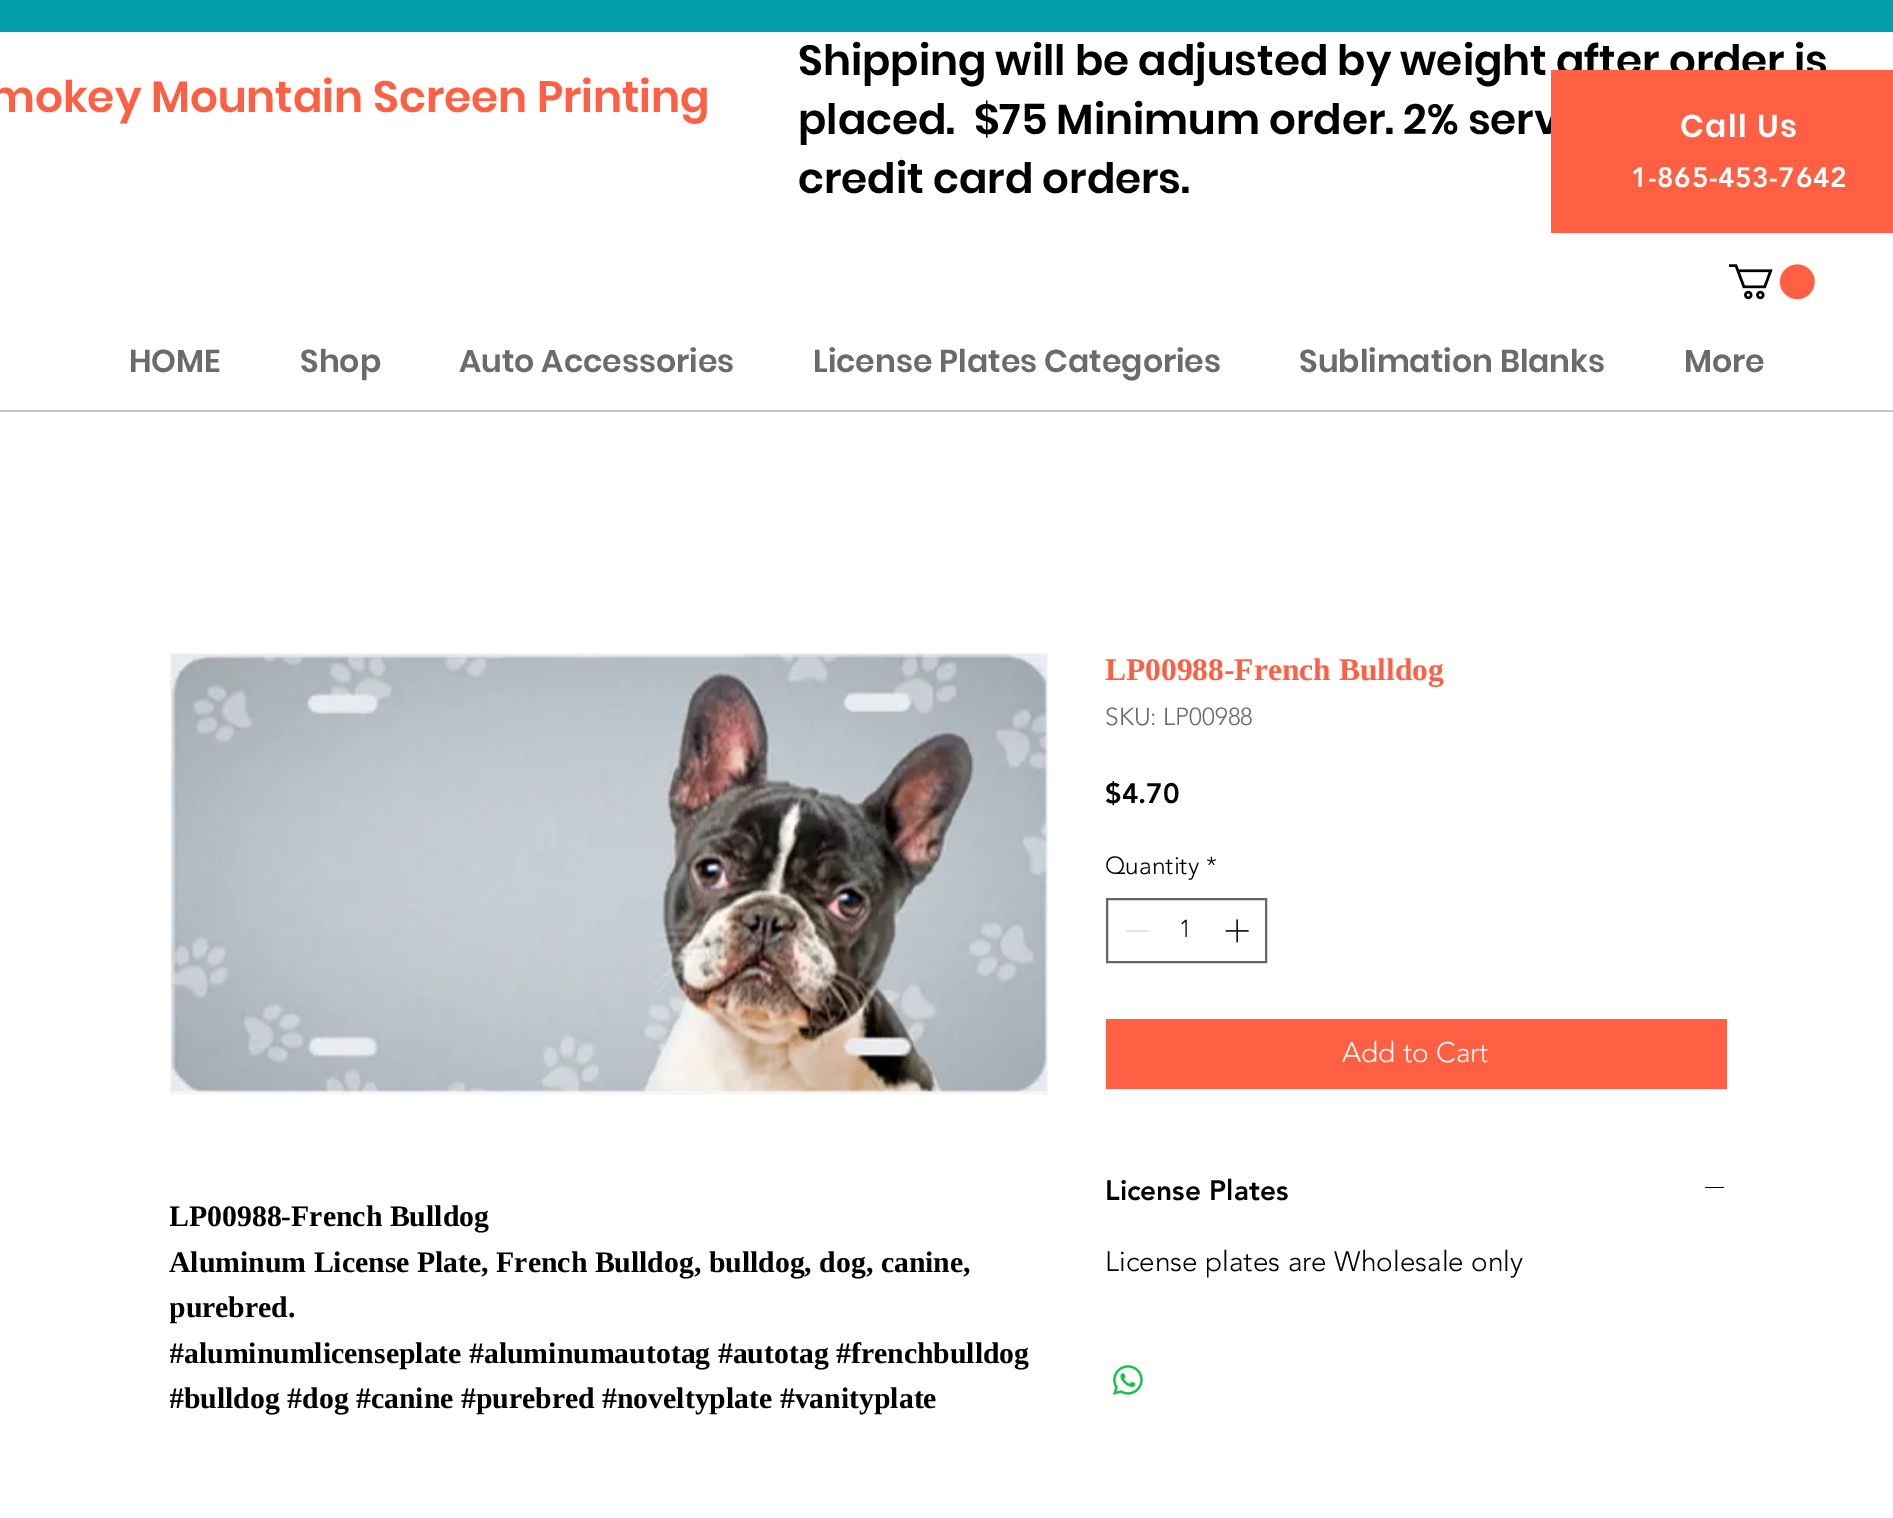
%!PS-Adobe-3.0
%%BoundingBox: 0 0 1893 1518
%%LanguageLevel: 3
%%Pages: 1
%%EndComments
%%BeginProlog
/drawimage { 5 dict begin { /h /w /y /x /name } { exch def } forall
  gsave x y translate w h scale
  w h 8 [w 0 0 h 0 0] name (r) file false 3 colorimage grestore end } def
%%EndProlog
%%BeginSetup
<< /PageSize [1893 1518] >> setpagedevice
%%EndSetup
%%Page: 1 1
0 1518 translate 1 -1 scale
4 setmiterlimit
1 setgray
0 0 1893 1518 rectfill
0.004 0.62 0.667 setrgbcolor
0 0 1893 32 rectfill
0.78 setgray
0 410 1893 2 rectfill
(images/1.raw) 1729 264 86 36 drawimage
0.4 setgray
2 setlinewidth
1107 899 159 63 rectstroke
0.89 setgray
1126 930 23 2 rectfill
(images/2.raw) 1225 919 24 24 drawimage
1 0.373 0.259 setrgbcolor
1106 1019 621 70 rectfill
0 setgray
1705 1187 19 1 rectfill
(images/3.raw) 1113 1365 30 30 drawimage
0.961 setgray
171 654 876 439 rectstroke
(images/4.raw) 171 654 876 438 drawimage
/Poppins-SemiBold [43.75 0 0 -43.75 0 0] selectfont
1 0.373 0.259 setrgbcolor
-11 112 moveto (mokey Mountain Screen Printing) show
/Poppins-SemiBold [42 0 0 -42 0 0] selectfont
0 setgray
798 75 moveto (Shipping will be adjusted by weight after order is) show
798 134 moveto (placed.  $75 Minimum order. 2% serv) show
798 193 moveto (credit card orders.) show
/Poppins-SemiBold [31.5 0 0 -31.5 0 0] selectfont
0.42 0.42 0.416 setrgbcolor
129 372 moveto (HOME) show
300 372 moveto (Shop) show
459 372 moveto (Auto Accessories) show
813 372 moveto (License Plates Categories) show
1299 372 moveto (Sublimation Blanks) show
1684 372 moveto (More) show
1 0.373 0.259 setrgbcolor
1551 70 342 163 rectfill
1 setgray
1680 137 moveto 1.5 0 (Call Us) ashow
/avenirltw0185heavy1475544-Black [28 0 0 -28 0 0] selectfont
1631 187 moveto 0.5 0 (1-865-453-7642) ashow
/LiberationSerif-Bold [31.5 0 0 -31.5 0 0] selectfont
1 0.373 0.259 setrgbcolor
1105 680 moveto (LP00988-French Bulldog) show
/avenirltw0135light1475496-Light [24.5 0 0 -24.5 0 0] selectfont
0.42 0.42 0.416 setrgbcolor
1105 725 moveto (SKU: LP00988) show
/avenirltw0185heavy1475544-Black [28 0 0 -28 0 0] selectfont
0 setgray
1105 803 moveto ($4.70) show
/avenirltw0135light1475496-Light [24.5 0 0 -24.5 0 0] selectfont
1105 874 moveto (Quantity) show
1206 874 moveto (*) show
1179 937 moveto (1) show
/avenirltw0135light1475496-Light [28 0 0 -28 0 0] selectfont
1 setgray
1342 1062 moveto (Add to Cart) show
/avenirltw0185heavy1475544-Black [28 0 0 -28 0 0] selectfont
0 setgray
1105 1200 moveto (License Plates) show
/avenirltw0135light1475496-Light [28 0 0 -28 0 0] selectfont
1105 1271 moveto (License plates are Wholesale only) show
gsave
170 1195 875 228 rectclip
/LiberationSerif-Bold [29.75 0 0 -29.75 0 0] selectfont
169 1226 moveto (LP00988-French Bulldog) show
grestore
/LiberationSerif-Bold [29.75 0 0 -29.75 0 0] selectfont
169 1272 moveto (Aluminum License Plate, French Bulldog, bulldog, dog, canine,) show
gsave
170 1195 875 228 rectclip
169 1317 moveto (purebred.) show
169 1363 moveto (#aluminumlicenseplate #aluminumautotag #autotag #frenchbulldog) show
169 1408 moveto (#bulldog #dog #canine #purebred #noveltyplate #vanityplate) show
grestore
showpage
%%EOF
